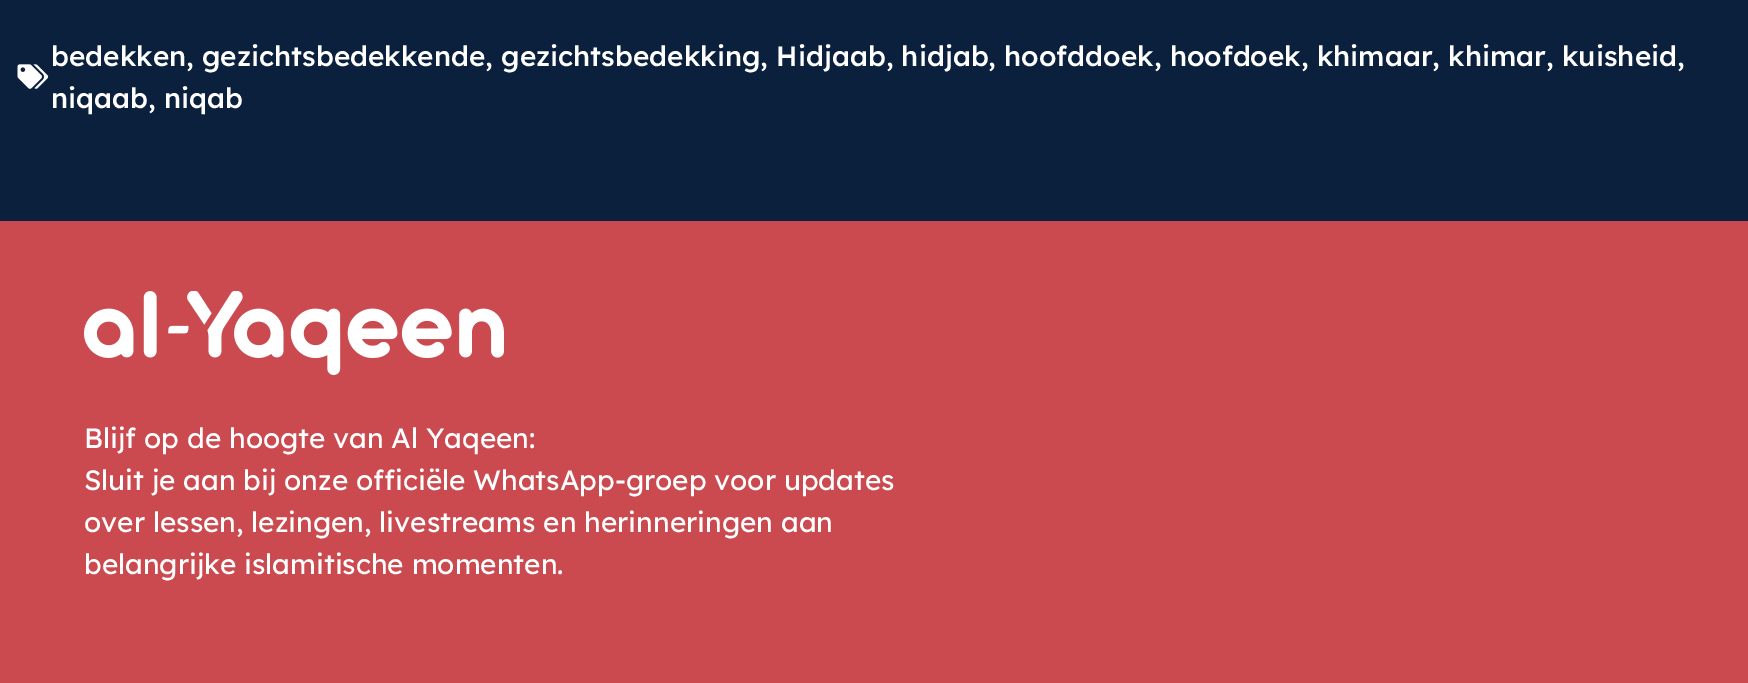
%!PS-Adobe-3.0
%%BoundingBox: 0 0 1748 683
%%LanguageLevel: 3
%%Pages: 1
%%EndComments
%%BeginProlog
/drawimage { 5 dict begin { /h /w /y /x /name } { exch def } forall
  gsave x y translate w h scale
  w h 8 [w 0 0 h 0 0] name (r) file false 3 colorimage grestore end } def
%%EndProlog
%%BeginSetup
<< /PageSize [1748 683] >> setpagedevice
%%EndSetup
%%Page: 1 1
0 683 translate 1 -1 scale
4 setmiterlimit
0.043 0.125 0.239 setrgbcolor
0 0 1748 683 rectfill
(images/1.raw) 17 64 32 25 drawimage
0.792 0.29 0.31 setrgbcolor
0 221 1748 462 rectfill
(images/2.raw) 84 291 420 84 drawimage
/LexendDeca-Medium [28 0 0 -28 0 0] selectfont
1 setgray
51 66 moveto (bedekken, gezichtsbedekkende, gezichtsbedekking, Hidjaab, hidjab, hoofddoek, hoofdoek, khimaar, khimar, kuisheid,) show
51 108 moveto (niqaab, niqab) show
/LexendDeca-Regular [28 0 0 -28 0 0] selectfont
84 448 moveto (Blijf op de hoogte van Al Yaqeen:) show
84 490 moveto (Sluit je aan bij onze officiële WhatsApp-groep voor updates) show
84 532 moveto (over lessen, lezingen, livestreams en herinneringen aan) show
84 574 moveto (belangrijke islamitische momenten.) show
showpage
%%EOF
